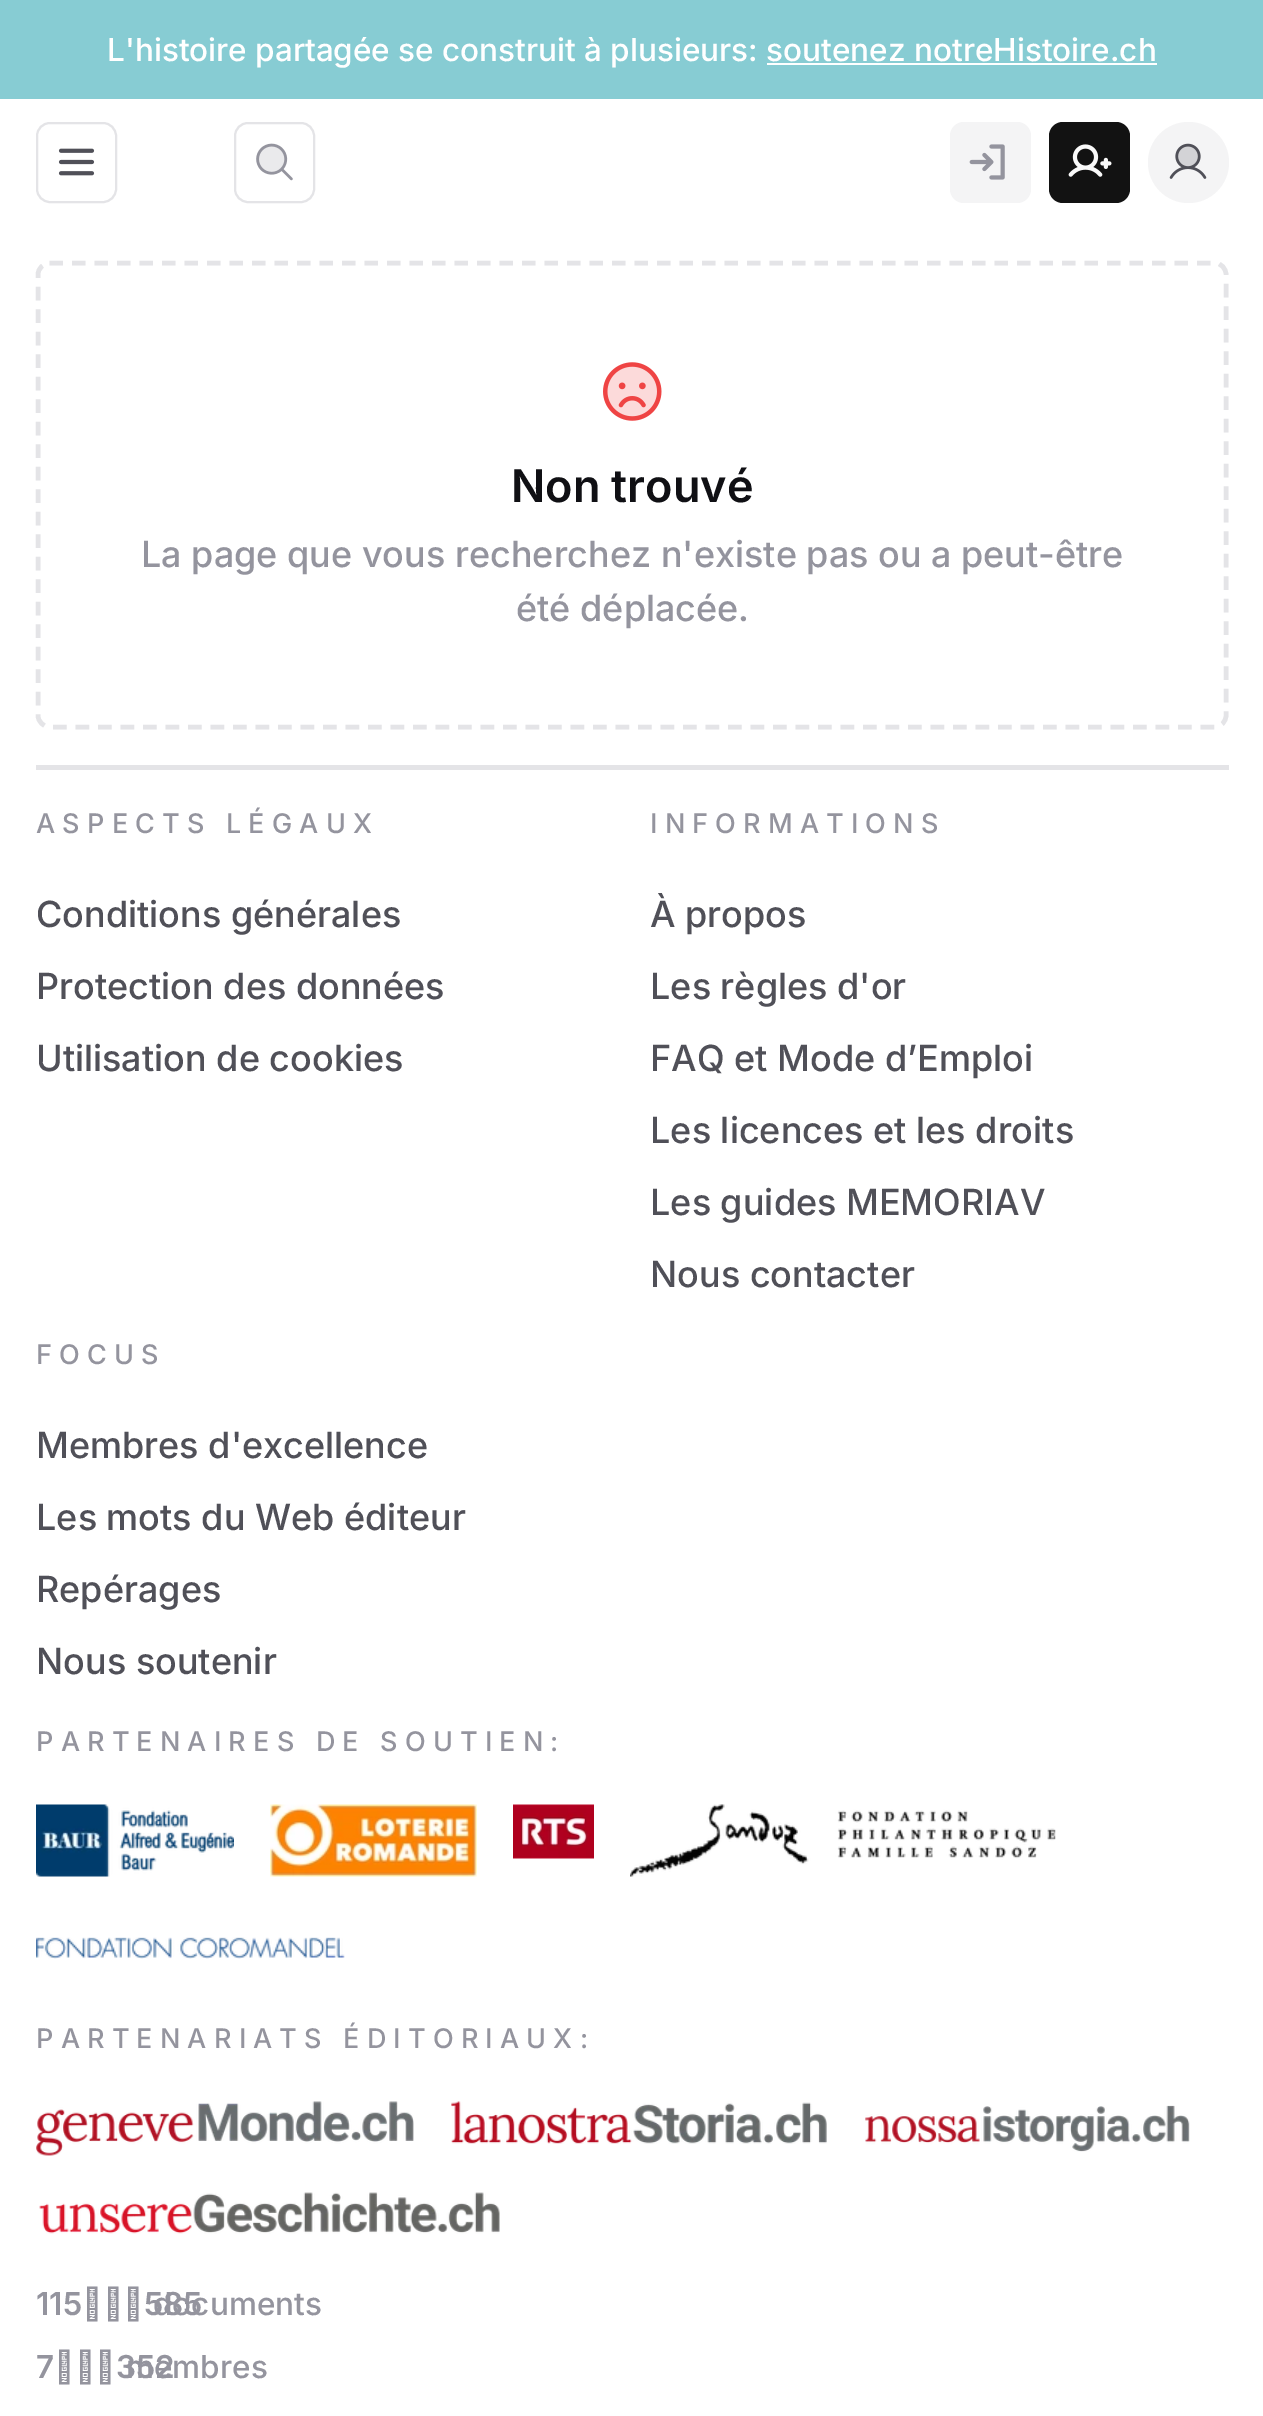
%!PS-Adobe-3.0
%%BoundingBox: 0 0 1263 2416
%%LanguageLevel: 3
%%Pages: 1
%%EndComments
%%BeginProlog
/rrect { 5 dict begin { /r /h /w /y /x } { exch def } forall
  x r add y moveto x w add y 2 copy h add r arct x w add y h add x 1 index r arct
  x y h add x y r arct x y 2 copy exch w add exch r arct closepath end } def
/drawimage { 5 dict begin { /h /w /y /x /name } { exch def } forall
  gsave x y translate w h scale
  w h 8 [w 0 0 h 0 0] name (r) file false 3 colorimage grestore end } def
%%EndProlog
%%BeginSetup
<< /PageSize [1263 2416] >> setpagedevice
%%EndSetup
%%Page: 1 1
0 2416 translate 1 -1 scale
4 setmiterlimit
1 setgray
0 0 1263 2416 rectfill
0.529 0.8 0.827 setrgbcolor
0 0 1263 99 rectfill
1 setgray
767 63 390 2 rectfill
0.894 0.894 0.906 setrgbcolor
2 setlinewidth
37 123 79 79 13 rrect stroke
(images/1.raw) 58 148 37 28 drawimage
235 123 79 79 13 rrect stroke
(images/2.raw) 256 143 37 38 drawimage
0.957 0.957 0.961 setrgbcolor
950 122 81 81 14 rrect fill
(images/3.raw) 969 144 36 36 drawimage
0.071 setgray
1049 122 81 81 14 rrect fill
(images/4.raw) 1068 144 44 33 drawimage
0.957 0.957 0.961 setrgbcolor
newpath 1188.5 162.5 40.5 0 360 arc closepath fill
(images/5.raw) 1169 143 38 36 drawimage
0.894 0.894 0.906 setrgbcolor
4.5 setlinewidth
[13.5 9] 0 setdash
newpath 49.5 263 moveto 1215 263 lineto 1221 263 1226 268.5 1226 274.5 curveto 1226 715.5 lineto 1226 721.5 1221 727 1215 727 curveto 49.5 727 lineto 43.5 727 38 721.5 38 715.5 curveto 38 274.5 lineto 38 268.5 43.5 263 49.5 263 curveto closepath stroke
(images/6.raw) 603 362 59 59 drawimage
36 765 1193 5 rectfill
(images/7.raw) 36 1804 198 73 drawimage
(images/8.raw) 270 1804 207 73 drawimage
(images/9.raw) 513 1804 81 55 drawimage
(images/10.raw) 630 1804 426 73 drawimage
(images/11.raw) 36 1937 309 22 drawimage
(images/12.raw) 36 2101 378 55 drawimage
(images/13.raw) 451 2101 376 43 drawimage
(images/14.raw) 865 2105 325 47 drawimage
(images/15.raw) 39 2192 461 42 drawimage
/Inter-Medium [31.5 0 0 -31.5 0 0] selectfont
1 setgray
107 61 moveto (L'histoire partagée se construit à plusieurs: soutenez notreHistoire.ch) show
/Inter-SemiBold [45 0 0 -45 0 0] selectfont
0.063 0.063 0.078 setrgbcolor
511 502 moveto (Non trouvé) show
/Inter-Medium [36 0 0 -36 0 0] selectfont
0.58 0.58 0.62 setrgbcolor
141 567 moveto (La page que vous recherchez n'existe pas ou a peut-être) show
516 621 moveto (été déplacée.) show
/Inter-Medium [27 0 0 -27 0 0] selectfont
36 833 moveto 7.2 0 (ASPECTS LÉGAUX) ashow
/Inter-Medium [36 0 0 -36 0 0] selectfont
0.314 0.314 0.345 setrgbcolor
36 927 moveto (Conditions générales) show
36 999 moveto (Protection des données) show
36 1071 moveto (Utilisation de cookies) show
/Inter-Medium [27 0 0 -27 0 0] selectfont
0.58 0.58 0.62 setrgbcolor
650 833 moveto 7.2 0 (INFORMATIONS) ashow
/Inter-Medium [36 0 0 -36 0 0] selectfont
0.314 0.314 0.345 setrgbcolor
650 927 moveto (À propos) show
650 999 moveto (Les règles d'or) show
650 1071 moveto (FAQ et Mode d’Emploi) show
650 1143 moveto (Les licences et les droits) show
650 1215 moveto (Les guides MEMORIAV) show
650 1287 moveto (Nous contacter) show
/Inter-Medium [27 0 0 -27 0 0] selectfont
0.58 0.58 0.62 setrgbcolor
36 1364 moveto 7.2 0 (FOCUS) ashow
/Inter-Medium [36 0 0 -36 0 0] selectfont
0.314 0.314 0.345 setrgbcolor
36 1458 moveto (Membres d'excellence) show
36 1530 moveto (Les mots du Web éditeur) show
36 1602 moveto (Repérages) show
36 1674 moveto (Nous soutenir) show
/Inter-Medium [27 0 0 -27 0 0] selectfont
0.58 0.58 0.62 setrgbcolor
36 1751 moveto 7.2 0 (PARTENAIRES DE SOUTIEN:) ashow
36 2048 moveto 7.2 0 (PARTENARIATS ÉDITORIAUX:) ashow
/Inter-SemiBold [31.5 0 0 -31.5 0 0] selectfont
36 2315 moveto (115 585) show
/Inter-Medium [31.5 0 0 -31.5 0 0] selectfont
153 2315 moveto (documents) show
/Inter-SemiBold [31.5 0 0 -31.5 0 0] selectfont
36 2378 moveto (7 352) show
/Inter-Medium [31.5 0 0 -31.5 0 0] selectfont
126 2378 moveto (membres) show
showpage
%%EOF
